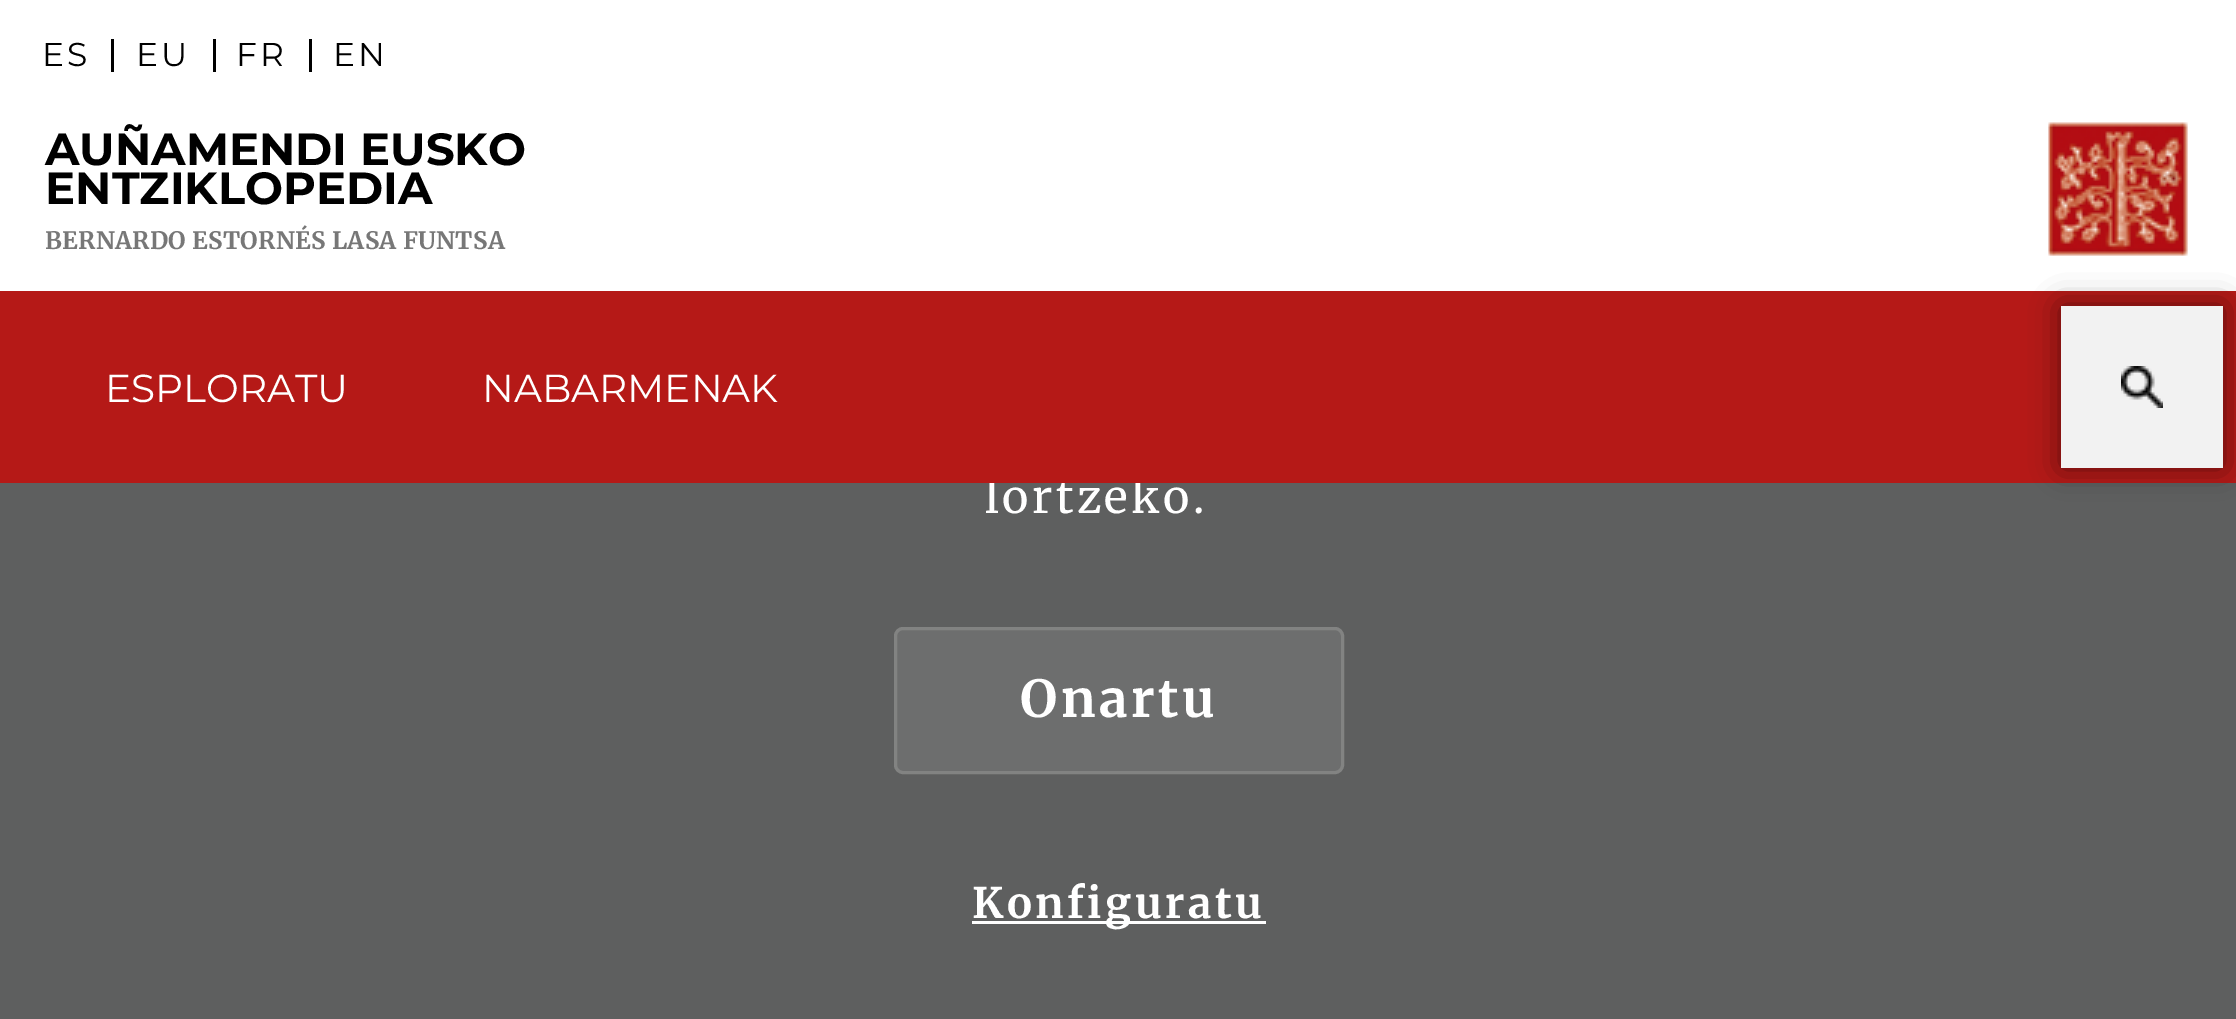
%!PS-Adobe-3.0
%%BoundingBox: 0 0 2236 1019
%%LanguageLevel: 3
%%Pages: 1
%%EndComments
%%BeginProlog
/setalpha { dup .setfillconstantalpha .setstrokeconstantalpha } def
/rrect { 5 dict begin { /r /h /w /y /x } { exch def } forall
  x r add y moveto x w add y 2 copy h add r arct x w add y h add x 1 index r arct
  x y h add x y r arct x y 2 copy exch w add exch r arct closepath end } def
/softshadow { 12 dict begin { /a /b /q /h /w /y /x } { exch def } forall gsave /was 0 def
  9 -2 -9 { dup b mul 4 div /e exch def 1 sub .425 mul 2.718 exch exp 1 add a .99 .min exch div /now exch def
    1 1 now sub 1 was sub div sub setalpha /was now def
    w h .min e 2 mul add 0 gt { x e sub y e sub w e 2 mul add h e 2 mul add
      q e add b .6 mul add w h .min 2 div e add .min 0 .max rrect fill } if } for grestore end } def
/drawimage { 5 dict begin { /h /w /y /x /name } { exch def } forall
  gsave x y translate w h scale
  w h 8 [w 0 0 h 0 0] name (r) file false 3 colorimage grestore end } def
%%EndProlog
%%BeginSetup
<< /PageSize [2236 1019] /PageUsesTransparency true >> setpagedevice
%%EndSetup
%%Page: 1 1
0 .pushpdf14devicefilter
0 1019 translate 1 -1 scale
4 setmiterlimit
0.369 0.373 0.373 setrgbcolor
0 0 2236 1019 rectfill
1 setgray
0 0 2236 291 rectfill
0 setgray
111 39 3 33 rectfill
213 39 3 33 rectfill
309 39 3 33 rectfill
(images/1.raw) 2048 122 140 134 drawimage
0.427 0.431 0.431 setrgbcolor
895.5 628.5 447 144 7.5 rrect gsave fill grestore
0.51 0.514 0.51 setrgbcolor
3 setlinewidth
stroke
1 setgray
972 921 294 3 rectfill
/Montserrat-Regular [33 0 0 -33 0 0] selectfont
0 setgray
42 66 moveto 3.4 0 (ES) ashow
136 66 moveto 3.4 0 (EU) ashow
236 66 moveto 3.4 0 (FR) ashow
333 66 moveto 3.4 0 (EN) ashow
/Montserrat-Bold [45 0 0 -45 0 0] selectfont
45 165 moveto (AUÑAMENDI EUSKO) show
45 204 moveto (ENTZIKLOPEDIA) show
/Merriweather-Bold [24 0 0 -24 0 0] selectfont
0.467 setgray
45 249 moveto 0.3 0 (BERNARDO ESTORNÉS LASA FUNTSA) ashow
/Merriweather-Regular [45 0 0 -45 0 0] selectfont
1 setgray
985 513 moveto 3.4 0 (lortzeko.) ashow
0.71 0.098 0.09 setrgbcolor
0 291 2236 192 rectfill
0 setgray
2061 306 162 162 0 15 0.5 softshadow
0.949 setgray
2061 306 162 162 rectfill
(images/2.raw) 2121 366 42 42 drawimage
/Montserrat-Regular [39 0 0 -39 0 0] selectfont
1 setgray
482 402 moveto (NABARMENAK) show
105 402 moveto (ESPLORATU) show
/Merriweather-Bold [51 0 0 -51 0 0] selectfont
1020 717 moveto 3.4 0 (Onartu) ashow
/Merriweather-Bold [42 0 0 -42 0 0] selectfont
972 918 moveto 3.4 0 (Konfiguratu) ashow
.poppdf14devicefilter showpage
%%EOF
